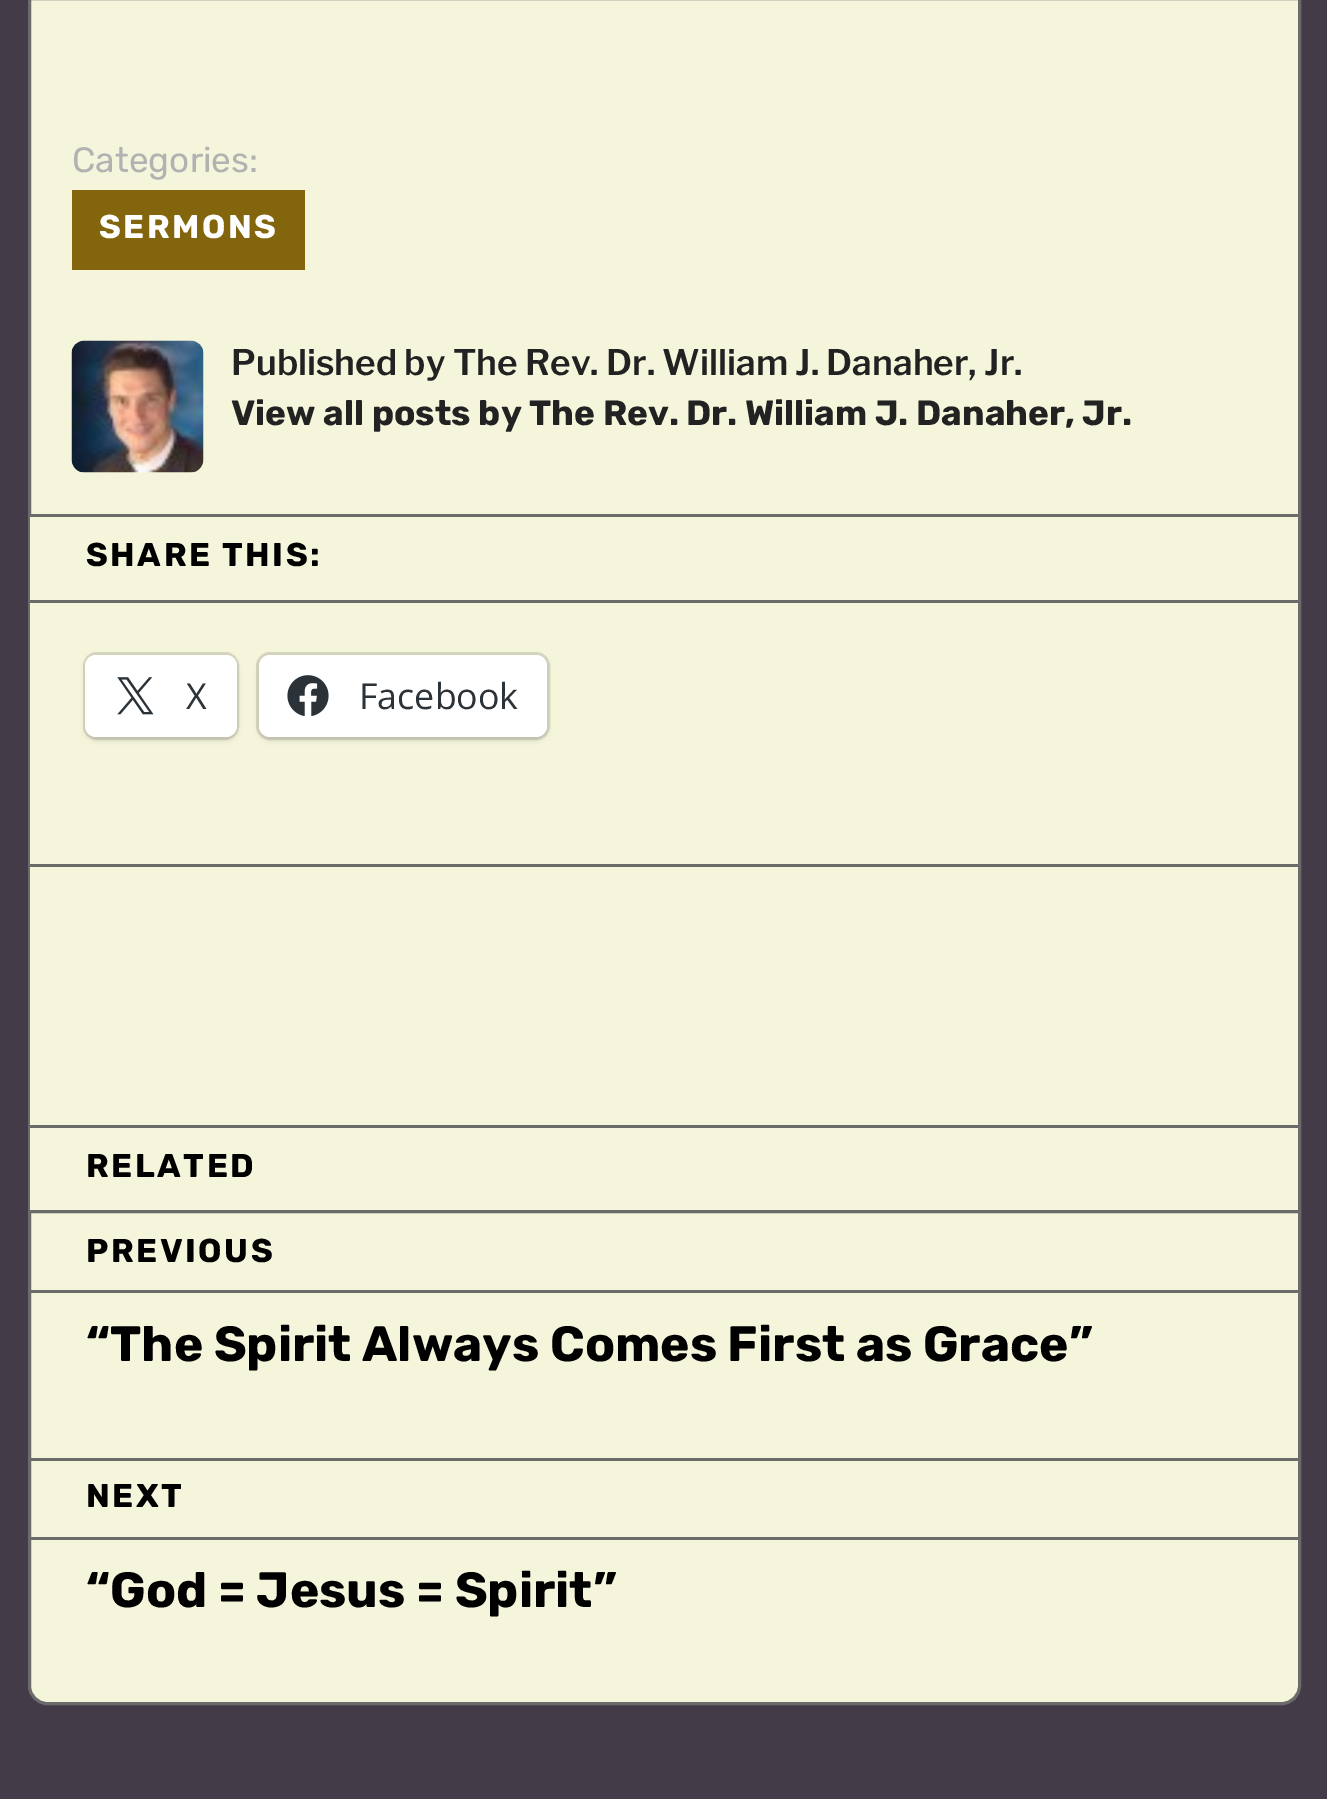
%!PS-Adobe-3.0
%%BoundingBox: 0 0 1327 1799
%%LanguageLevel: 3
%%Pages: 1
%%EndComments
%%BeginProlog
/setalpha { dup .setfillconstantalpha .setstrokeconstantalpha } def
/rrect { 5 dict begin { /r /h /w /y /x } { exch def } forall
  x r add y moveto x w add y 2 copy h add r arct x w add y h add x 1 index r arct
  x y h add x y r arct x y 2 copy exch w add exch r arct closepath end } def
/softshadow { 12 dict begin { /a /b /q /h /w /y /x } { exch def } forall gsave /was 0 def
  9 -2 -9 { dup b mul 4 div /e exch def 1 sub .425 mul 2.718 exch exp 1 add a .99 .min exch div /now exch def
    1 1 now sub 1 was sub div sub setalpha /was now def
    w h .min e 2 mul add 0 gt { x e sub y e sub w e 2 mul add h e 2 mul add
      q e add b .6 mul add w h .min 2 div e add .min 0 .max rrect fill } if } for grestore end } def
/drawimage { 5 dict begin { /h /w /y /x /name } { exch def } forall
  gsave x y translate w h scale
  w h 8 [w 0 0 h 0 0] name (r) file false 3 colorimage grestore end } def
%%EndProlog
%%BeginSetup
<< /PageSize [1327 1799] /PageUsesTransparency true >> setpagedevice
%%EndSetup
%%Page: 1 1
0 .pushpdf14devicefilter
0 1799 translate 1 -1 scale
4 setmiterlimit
0.267 0.231 0.282 setrgbcolor
0 0 1327 1799 rectfill
0.961 0.961 0.863 setrgbcolor
31 0 1267 514 rectfill
0.42 setgray
3 setlinewidth
29.5 -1.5 1270 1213 rectstroke
0.51 0.396 0.047 setrgbcolor
72 190 233 80 rectfill
(images/1.raw) 71 340 133 133 drawimage
0.961 0.961 0.863 setrgbcolor
30 517 1268 347 rectfill
0.42 setgray
30 514 1268 3 rectfill
30 600 1268 3 rectfill
0.847 0.847 0.761 setrgbcolor
84.5 653.5 153 85 12.5 rrect stroke
0 setgray
85 657 152 83 11 3 0.12 softshadow
1 setgray
85 655 152 82 11 rrect fill
(images/2.raw) 117 677 37 38 drawimage
0.847 0.847 0.761 setrgbcolor
257.5 653.5 291 85 12.5 rrect stroke
0 setgray
259 657 288 83 11 3 0.12 softshadow
1 setgray
259 655 288 82 11 rrect fill
(images/3.raw) 287 675 42 42 drawimage
0.961 0.961 0.863 setrgbcolor
30 867 1268 258 rectfill
0.42 setgray
30 864 1268 3 rectfill
0.961 0.961 0.863 setrgbcolor
30 1128 1268 82 rectfill
0.42 setgray
30 1125 1268 3 rectfill
0.961 0.961 0.863 setrgbcolor
newpath 29.5 1211.5 moveto 1299.5 1211.5 lineto 1299.5 1686 lineto 1299.5 1695.5 1291.5 1703.5 1282 1703.5 curveto 47 1703.5 lineto 37.5 1703.5 29.5 1695.5 29.5 1686 curveto closepath gsave fill grestore
0.42 setgray
stroke
30 1290 1268 3 rectfill
30 1458 1268 3 rectfill
30 1537 1268 3 rectfill
/Rubik-Regular [35.2 0 0 -35.2 0 0] selectfont
0.698 setgray
72 172 moveto (Categories:) show
/Rubik-Bold [33 0 0 -33 0 0] selectfont
1 setgray
99 238 moveto 2.5 0 (SERMONS) ashow
/LibreFranklin-SemiBold [35.2 0 0 -35.2 0 0] selectfont
0.133 setgray
231 375 moveto (Published by The Rev. Dr. William J. Danaher, Jr.) show
/Rubik-Bold [35.2 0 0 -35.2 0 0] selectfont
231 425 moveto (View all posts by The Rev. Dr. William J. Danaher, Jr.) show
/Rubik-Bold [33 0 0 -33 0 0] selectfont
0 setgray
86 566 moveto 2.5 0 (SHARE THIS:) ashow
/OpenSans-Regular [35.75 0 0 -35.75 0 0] selectfont
0.173 0.2 0.22 setrgbcolor
186 709 moveto (X) show
359 709 moveto (Facebook) show
/Rubik-Bold [33 0 0 -33 0 0] selectfont
0 setgray
86 1177 moveto 2.5 0 (RELATED) ashow
86 1262 moveto 2.5 0 (PREVIOUS) ashow
/Rubik-Bold [49.5 0 0 -49.5 0 0] selectfont
86 1361 moveto (“The Spirit Always Comes First as Grace”) show
/Rubik-Bold [33 0 0 -33 0 0] selectfont
86 1507 moveto 2.5 0 (NEXT) ashow
/Rubik-Bold [49.5 0 0 -49.5 0 0] selectfont
86 1607 moveto (“God = Jesus = Spirit”) show
.poppdf14devicefilter showpage
%%EOF
